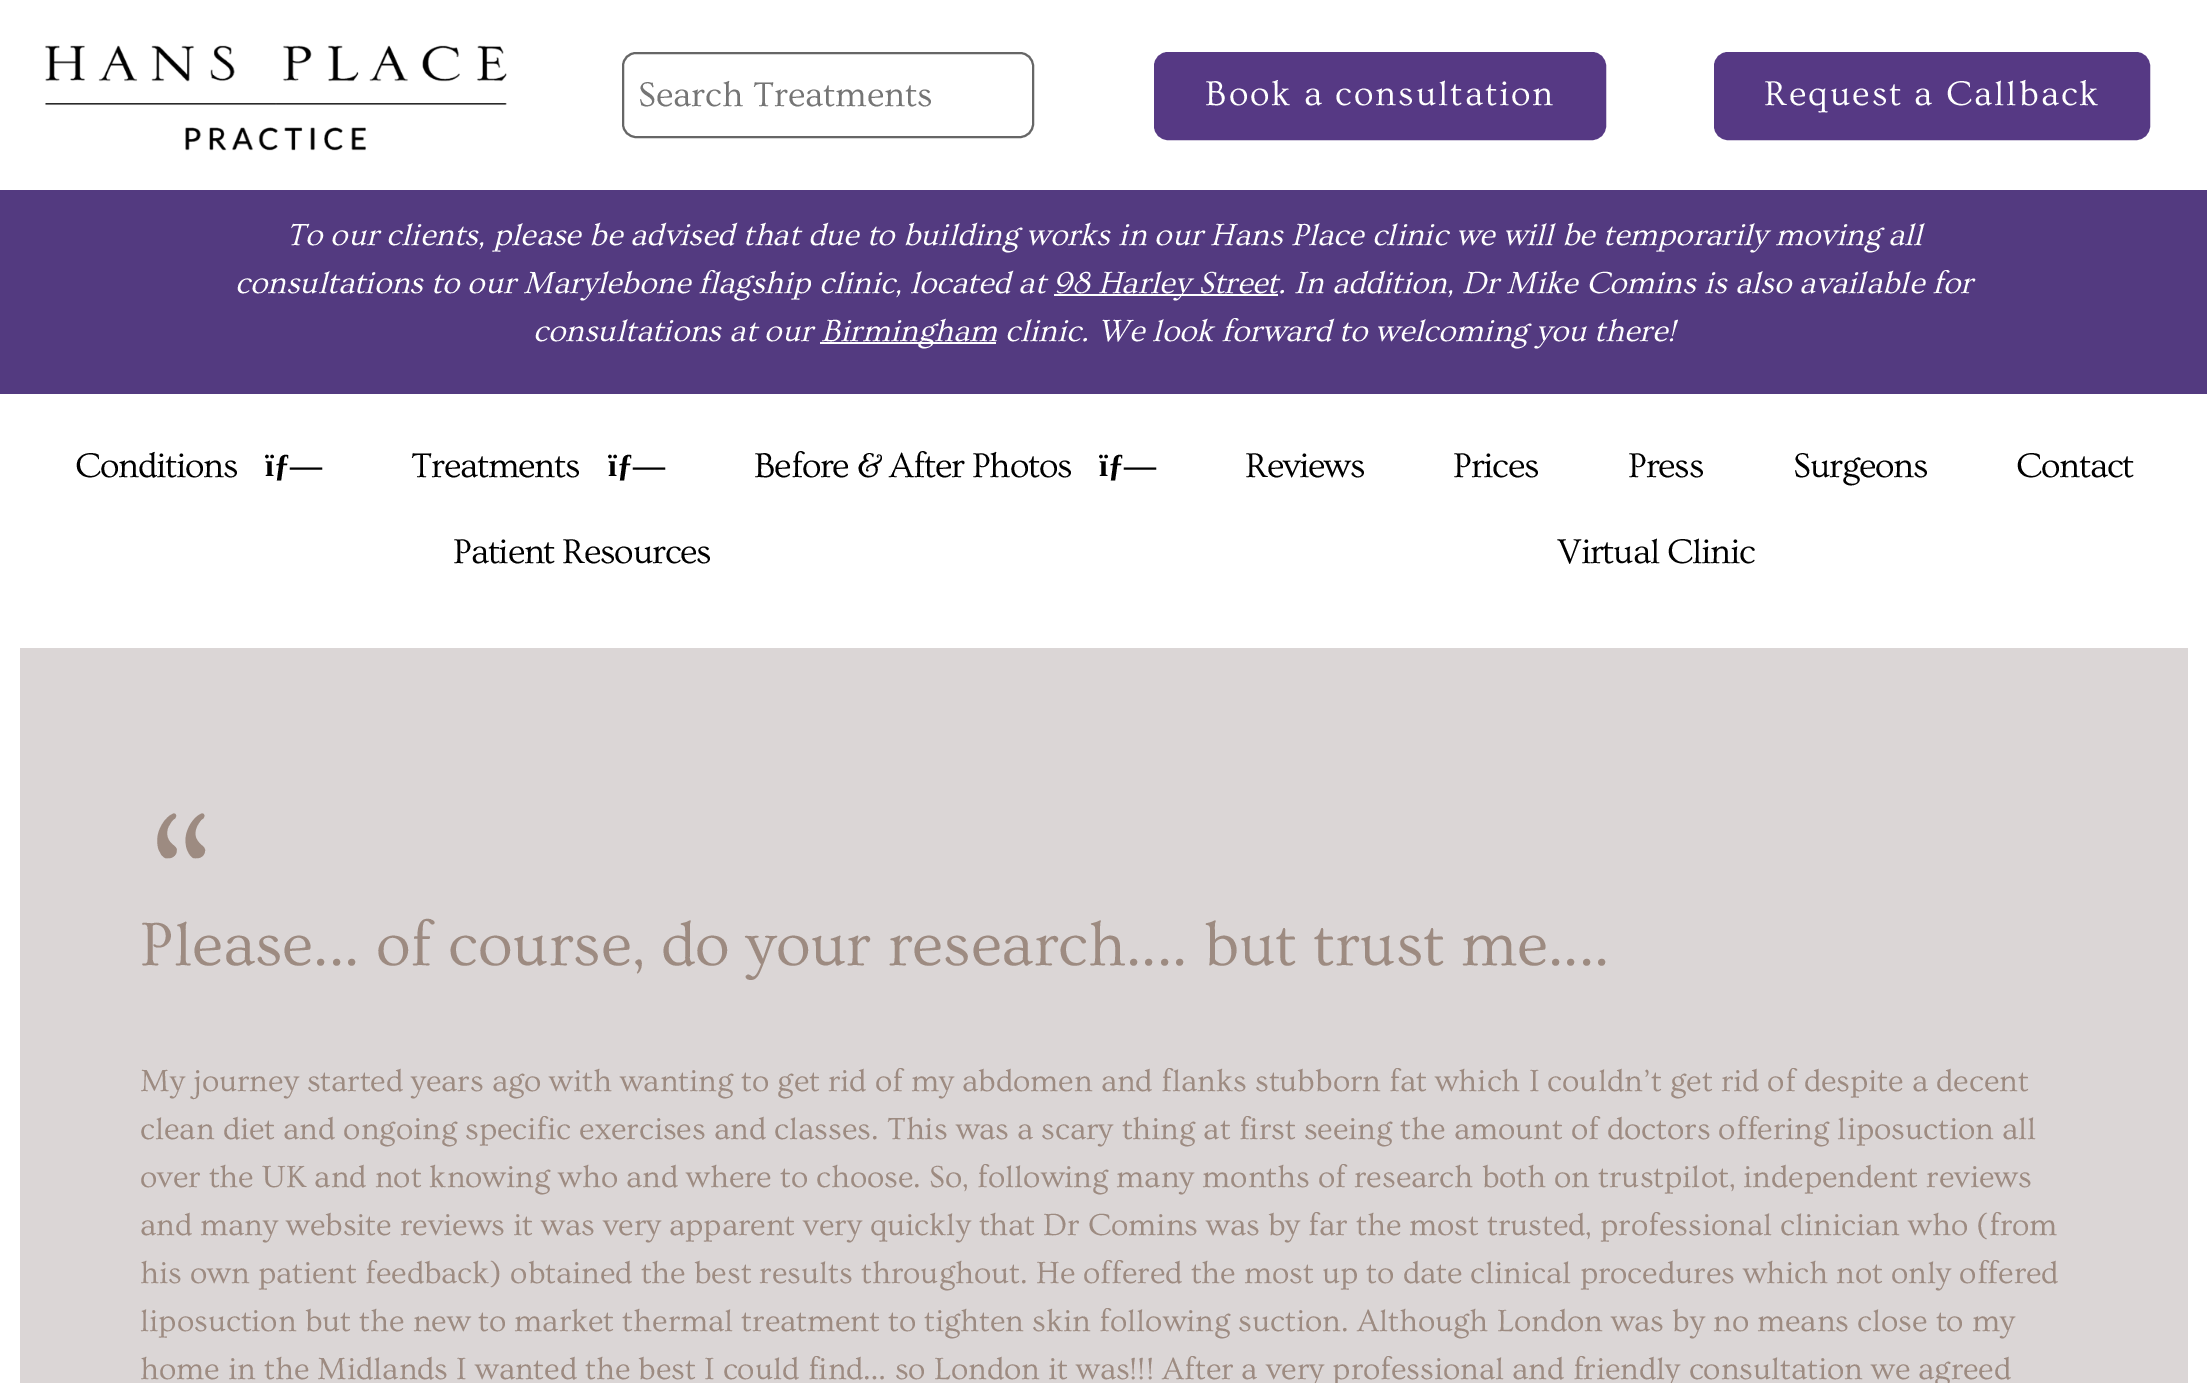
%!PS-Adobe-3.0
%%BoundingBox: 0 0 2207 1383
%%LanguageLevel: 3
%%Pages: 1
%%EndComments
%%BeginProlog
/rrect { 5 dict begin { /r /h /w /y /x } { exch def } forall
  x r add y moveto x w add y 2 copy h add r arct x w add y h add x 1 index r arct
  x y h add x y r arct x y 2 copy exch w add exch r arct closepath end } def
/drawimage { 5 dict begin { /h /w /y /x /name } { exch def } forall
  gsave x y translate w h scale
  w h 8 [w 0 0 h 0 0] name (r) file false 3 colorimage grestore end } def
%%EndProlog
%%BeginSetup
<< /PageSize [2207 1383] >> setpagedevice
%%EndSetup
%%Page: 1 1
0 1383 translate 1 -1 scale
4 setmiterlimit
1 setgray
0 0 2207 1383 rectfill
(images/1.raw) 45 45 462 106 drawimage
0.4 setgray
2 setlinewidth
623 53 410 84 13 rrect stroke
0.337 0.224 0.518 setrgbcolor
1155 53 450 86 13 rrect gsave fill grestore
stroke
1715 53 434 86 13 rrect gsave fill grestore
stroke
0.325 0.227 0.502 setrgbcolor
0 190 2207 204 rectfill
1 setgray
1054 294 224 2 rectfill
820 342 176 2 rectfill
0.859 0.839 0.839 setrgbcolor
20 648 2168 735 rectfill
/Ovo-Regular [36 0 0 -36 0 0] selectfont
0.459 setgray
638 106 moveto (Search Treatments) show
1 setgray
1205 105 moveto 2 0 (Book a consultation) ashow
1764 105 moveto 2 0 (Request a Callback) ashow
/Ovo-Italic [32 0 0 -32 0 0] selectfont
286 245 moveto (To our clients, please be advised that due to building works in our Hans Place clinic we will be temporarily moving all) show
235 293 moveto (consultations to our Marylebone flagship clinic, located at) show
1053 293 moveto (98 Harley Street. In addition, Dr Mike Comins is also available for) show
533 341 moveto (consultations at our) show
821 341 moveto (Birmingham clinic. We look forward to welcoming you there!) show
/Ovo-Regular [36 0 0 -36 0 0] selectfont
0 setgray
75 477 moveto -1.2 0 (Conditions) ashow
/LiberationSerif-Bold [32 0 0 -32 0 0] selectfont
265 476 moveto (ïƒ—) show
/Ovo-Regular [36 0 0 -36 0 0] selectfont
411 477 moveto -1.2 0 (Treatments) ashow
/LiberationSerif-Bold [32 0 0 -32 0 0] selectfont
608 476 moveto (ïƒ—) show
/Ovo-Regular [36 0 0 -36 0 0] selectfont
754 477 moveto -1.2 0 (Before & After Photos) ashow
/LiberationSerif-Bold [32 0 0 -32 0 0] selectfont
1099 476 moveto (ïƒ—) show
/Ovo-Regular [36 0 0 -36 0 0] selectfont
1245 477 moveto -1.2 0 (Reviews) ashow
1453 477 moveto -1.2 0 (Prices) ashow
1628 477 moveto -1.2 0 (Press) ashow
1793 477 moveto -1.2 0 (Surgeons) ashow
2016 477 moveto -1.2 0 (Contact) ashow
453 563 moveto -1.2 0 (Patient Resources) ashow
1557 563 moveto -1.2 0 (Virtual Clinic) ashow
/Ovo-Regular [200 0 0 -200 0 0] selectfont
0.616 0.545 0.506 setrgbcolor
140 949 moveto (“) show
/Ovo-Regular [64 0 0 -64 0 0] selectfont
140 965 moveto (Please... of course, do your research.... but trust me....) show
/Ovo-Regular [32 0 0 -32 0 0] selectfont
140 1091 moveto (My journey started years ago with wanting to get rid of my abdomen and flanks stubborn fat which I couldn’t get rid of despite a decent) show
140 1139 moveto (clean diet and ongoing specific exercises and classes. This was a scary thing at first seeing the amount of doctors offering liposuction all) show
140 1187 moveto (over the UK and not knowing who and where to choose. So, following many months of research both on trustpilot, independent reviews) show
140 1235 moveto (and many website reviews it was very apparent very quickly that Dr Comins was by far the most trusted, professional clinician who \(from) show
140 1283 moveto (his own patient feedback\) obtained the best results throughout. He offered the most up to date clinical procedures which not only offered) show
140 1331 moveto (liposuction but the new to market thermal treatment to tighten skin following suction. Although London was by no means close to my) show
140 1379 moveto (home in the Midlands I wanted the best I could find… so London it was!!! After a very professional and friendly consultation we agreed) show
showpage
%%EOF
